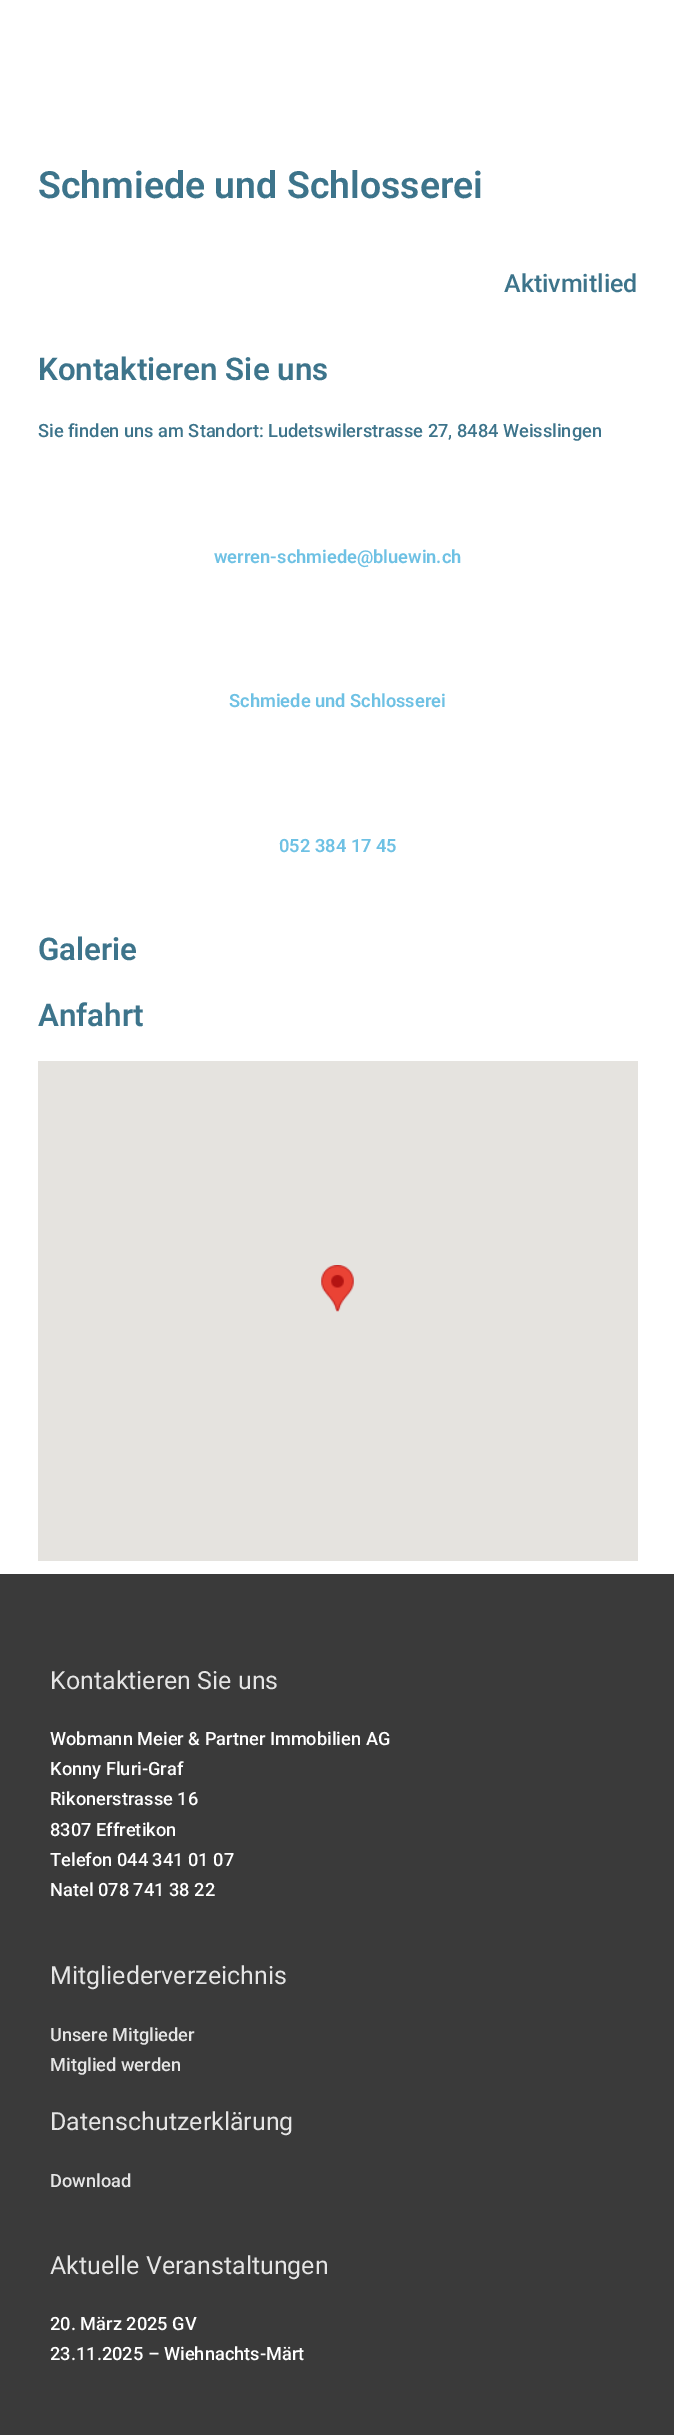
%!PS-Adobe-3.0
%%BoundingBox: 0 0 674 2435
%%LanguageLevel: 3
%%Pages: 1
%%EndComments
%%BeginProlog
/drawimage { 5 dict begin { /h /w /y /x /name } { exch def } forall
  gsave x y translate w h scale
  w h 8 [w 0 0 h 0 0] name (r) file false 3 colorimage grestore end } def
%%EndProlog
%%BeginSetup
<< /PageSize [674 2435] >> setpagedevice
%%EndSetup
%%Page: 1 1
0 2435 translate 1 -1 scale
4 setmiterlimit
1 setgray
0 0 674 2435 rectfill
0.898 0.89 0.875 setrgbcolor
38 1061 600 500 rectfill
(images/1.raw) 321 1265 33 47 drawimage
0.227 setgray
0 1574 674 861 rectfill
/Roboto-SemiBold [37.5 0 0 -37.5 0 0] selectfont
0.239 0.455 0.545 setrgbcolor
38 198 moveto (Schmiede und Schlosserei) show
/Roboto-Medium [25 0 0 -25 0 0] selectfont
504 292 moveto (Aktivmitlied) show
/Roboto-SemiBold [31.25 0 0 -31.25 0 0] selectfont
38 380 moveto (Kontaktieren Sie uns) show
/Roboto-Medium [18.25 0 0 -18.25 0 0] selectfont
38 437 moveto (Sie finden uns am Standort: Ludetswilerstrasse 27, 8484 Weisslingen) show
/Roboto-SemiBold [18.25 0 0 -18.25 0 0] selectfont
0.431 0.757 0.894 setrgbcolor
214 563 moveto (werren-schmiede@bluewin.ch) show
229 707 moveto (Schmiede und Schlosserei) show
279 852 moveto (052 384 17 45) show
/Roboto-SemiBold [31.25 0 0 -31.25 0 0] selectfont
0.239 0.455 0.545 setrgbcolor
38 960 moveto (Galerie) show
38 1026 moveto (Anfahrt) show
/Roboto-Regular [25 0 0 -25 0 0] selectfont
0.898 setgray
50 1689 moveto (Kontaktieren Sie uns) show
/Roboto-Medium [18.25 0 0 -18.25 0 0] selectfont
1 setgray
50 1745 moveto (Wobmann Meier & Partner Immobilien AG) show
50 1775 moveto (Konny Fluri-Graf) show
50 1805 moveto (Rikonerstrasse 16) show
50 1836 moveto (8307 Effretikon) show
50 1866 moveto (Telefon 044 341 01 07) show
50 1896 moveto (Natel 078 741 38 22) show
/Roboto-Regular [25 0 0 -25 0 0] selectfont
0.898 setgray
50 1984 moveto (Mitgliederverzeichnis) show
/Roboto-Medium [18.25 0 0 -18.25 0 0] selectfont
50 2041 moveto (Unsere Mitglieder) show
50 2071 moveto (Mitglied werden) show
/Roboto-Regular [25 0 0 -25 0 0] selectfont
50 2130 moveto (Datenschutzerklärung) show
/Roboto-Medium [18.25 0 0 -18.25 0 0] selectfont
50 2187 moveto (Download) show
/Roboto-Regular [25 0 0 -25 0 0] selectfont
50 2274 moveto (Aktuelle Veranstaltungen) show
/Roboto-Medium [18.25 0 0 -18.25 0 0] selectfont
1 setgray
50 2330 moveto (20. März 2025 GV) show
50 2360 moveto (23.11.2025 – Wiehnachts-Märt) show
showpage
%%EOF
